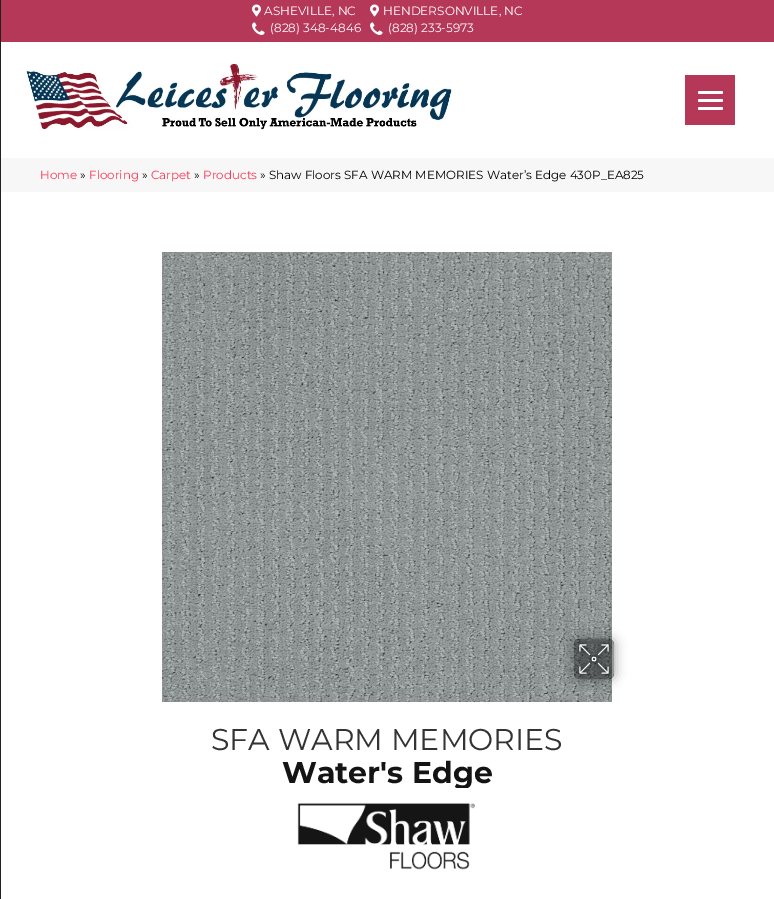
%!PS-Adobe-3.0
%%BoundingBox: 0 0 774 899
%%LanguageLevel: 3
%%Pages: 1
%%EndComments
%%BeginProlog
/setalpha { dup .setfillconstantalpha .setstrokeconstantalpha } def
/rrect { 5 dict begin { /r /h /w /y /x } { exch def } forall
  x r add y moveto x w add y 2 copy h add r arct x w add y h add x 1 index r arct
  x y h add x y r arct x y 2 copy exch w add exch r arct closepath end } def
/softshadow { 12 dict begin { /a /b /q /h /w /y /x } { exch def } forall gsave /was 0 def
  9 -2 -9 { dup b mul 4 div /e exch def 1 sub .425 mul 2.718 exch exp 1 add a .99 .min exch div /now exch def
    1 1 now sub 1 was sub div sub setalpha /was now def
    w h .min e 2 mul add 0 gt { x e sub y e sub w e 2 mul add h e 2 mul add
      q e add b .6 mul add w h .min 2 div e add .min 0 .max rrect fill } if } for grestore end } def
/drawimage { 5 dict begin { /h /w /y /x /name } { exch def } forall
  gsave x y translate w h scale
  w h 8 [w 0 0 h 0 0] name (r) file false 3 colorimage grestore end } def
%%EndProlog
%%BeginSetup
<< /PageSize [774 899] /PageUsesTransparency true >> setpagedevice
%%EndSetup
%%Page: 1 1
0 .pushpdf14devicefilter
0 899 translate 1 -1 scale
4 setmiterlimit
1 setgray
0 0 774 899 rectfill
0.129 setgray
0 0 1 899 rectfill
0.71 0.22 0.349 setrgbcolor
1 0 773 42 rectfill
(images/1.raw) 252 4 9 13 drawimage
(images/2.raw) 252 22 13 13 drawimage
(images/1.raw) 370 4 9 13 drawimage
(images/2.raw) 370 22 13 13 drawimage
(images/3.raw) 26 62 429 69 drawimage
0.969 setgray
1 158 773 34 rectfill
(images/4.raw) 162 252 450 450 drawimage
gsave
newpath 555 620 moveto 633 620 lineto 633 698 lineto 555 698 lineto closepath 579 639 moveto 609 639 lineto 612 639 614 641 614 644 curveto 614 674 lineto 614 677 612 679 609 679 curveto 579 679 lineto 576 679 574 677 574 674 curveto 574 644 lineto 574 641 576 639 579 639 curveto closepath eoclip newpath
0 setgray
574 639 40 40 5 6 0.41 softshadow
grestore
0.4 setalpha
0 setgray
574 639 40 40 5 rrect fill
1 setalpha
(images/5.raw) 576 641 37 36 drawimage
0.71 0.22 0.349 setrgbcolor
685 75 50 50 rectfill
1 setgray
698 99 25 3 1.5 rrect fill
698 91 25 3 1.5 rrect fill
698 107 25 3 1.5 rrect fill
/Montserrat-Regular [12 0 0 -12 0 0] selectfont
264 15 moveto (ASHEVILLE, NC) show
270 32 moveto (\(828\) 348-4846) show
383 15 moveto (HENDERSONVILLE, NC) show
388 32 moveto (\(828\) 233-5973) show
/Montserrat-Regular [11.9 0 0 -11.9 0 0] selectfont
0.98 0.224 0.349 setrgbcolor
40 179 moveto (Home) show
0 setgray
80 179 moveto (») show
0.98 0.224 0.349 setrgbcolor
89 179 moveto (Flooring) show
0 setgray
142 179 moveto (») show
0.98 0.224 0.349 setrgbcolor
151 179 moveto (Carpet) show
0 setgray
194 179 moveto (») show
0.98 0.224 0.349 setrgbcolor
203 179 moveto (Products) show
0 setgray
260 179 moveto (» Shaw Floors SFA WARM MEMORIES Water’s Edge 430P_EA825) show
/Montserrat-Regular [30 0 0 -30 0 0] selectfont
0.2 setgray
211 750 moveto (SFA WARM MEMORIES) show
/Montserrat-Bold [30 0 0 -30 0 0] selectfont
0.078 setgray
282 783 moveto (Water's Edge) show
(images/6.raw) 297 788 178 82 drawimage
.poppdf14devicefilter showpage
%%EOF
